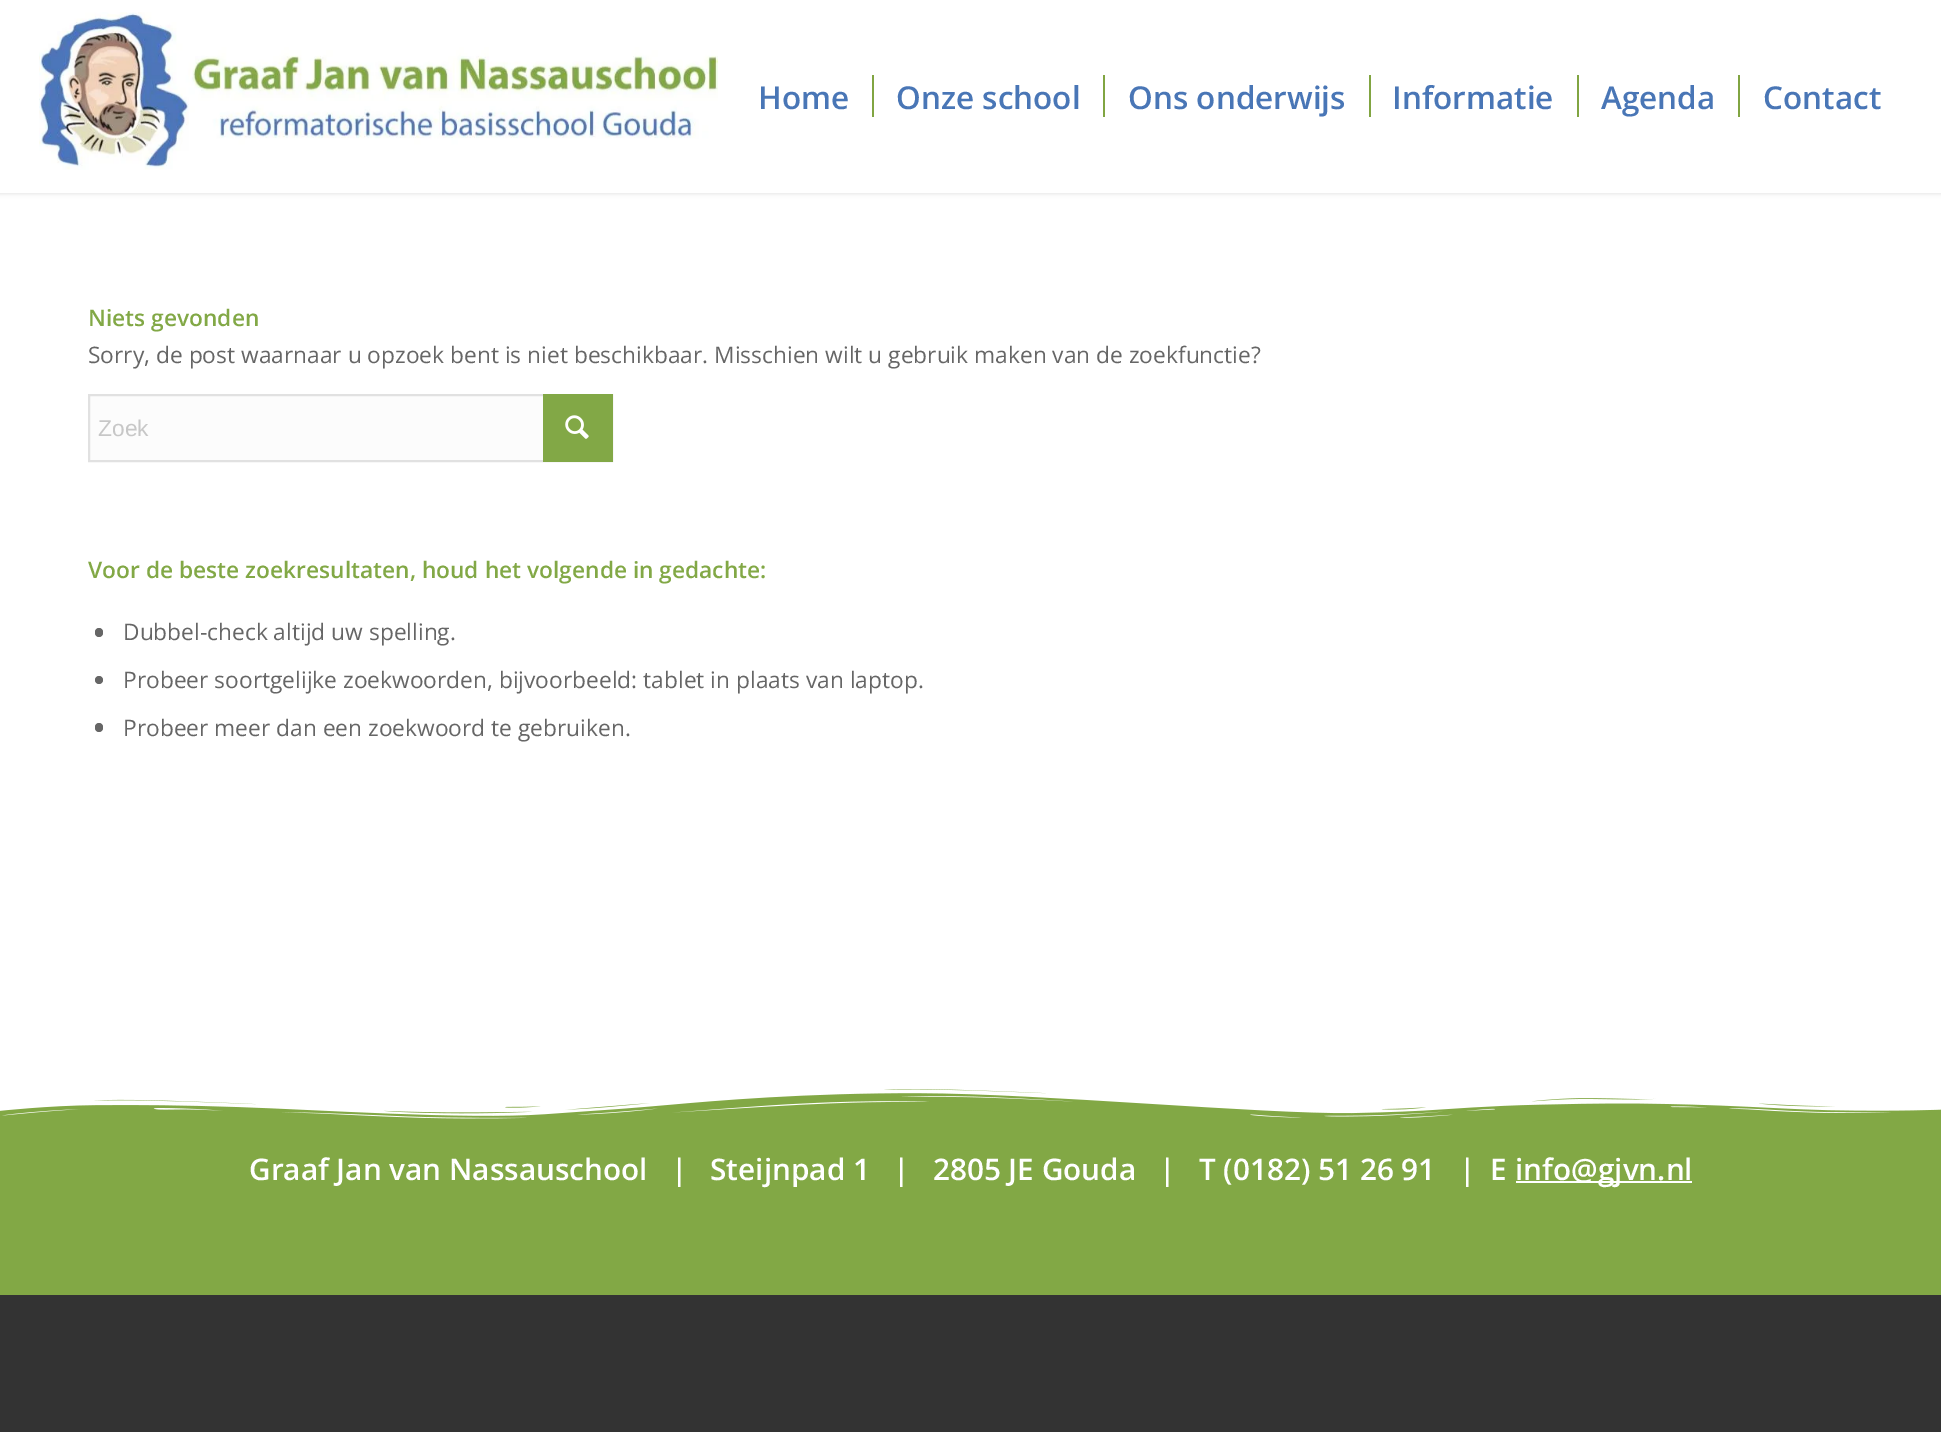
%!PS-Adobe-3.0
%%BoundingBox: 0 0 1941 1432
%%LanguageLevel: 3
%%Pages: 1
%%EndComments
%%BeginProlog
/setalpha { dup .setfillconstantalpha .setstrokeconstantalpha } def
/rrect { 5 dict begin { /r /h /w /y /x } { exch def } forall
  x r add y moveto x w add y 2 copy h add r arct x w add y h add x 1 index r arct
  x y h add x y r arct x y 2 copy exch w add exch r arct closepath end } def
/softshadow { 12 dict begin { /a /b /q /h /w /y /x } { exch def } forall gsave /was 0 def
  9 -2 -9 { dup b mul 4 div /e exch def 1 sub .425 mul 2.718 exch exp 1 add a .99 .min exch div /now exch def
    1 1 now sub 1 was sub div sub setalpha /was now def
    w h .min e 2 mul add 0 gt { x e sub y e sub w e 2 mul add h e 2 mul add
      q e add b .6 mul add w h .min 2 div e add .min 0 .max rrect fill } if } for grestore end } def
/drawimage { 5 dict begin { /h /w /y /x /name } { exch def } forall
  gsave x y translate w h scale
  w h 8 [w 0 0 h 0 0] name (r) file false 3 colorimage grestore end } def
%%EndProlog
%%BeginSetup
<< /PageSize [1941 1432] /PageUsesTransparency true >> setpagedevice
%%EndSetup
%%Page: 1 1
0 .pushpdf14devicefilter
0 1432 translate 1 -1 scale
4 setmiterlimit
0.2 setgray
0 0 1941 1432 rectfill
1 setgray
0 193 1941 926 rectfill
0 setgray
-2 -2 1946 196 0 2 0.1 softshadow
1 setgray
0 0 1941 193 rectfill
(images/1.raw) 39 12 679 158 drawimage
0.506 0.647 0.259 setrgbcolor
872 75 2 42 rectfill
1103 75 2 42 rectfill
1369 75 2 42 rectfill
1577 75 2 42 rectfill
1738 75 2 42 rectfill
0.988 setgray
90 396 453 64 rectfill
0.882 setgray
2 setlinewidth
89 395 523 66 rectstroke
0.51 0.659 0.275 setrgbcolor
543 394 70 68 rectfill
(images/2.raw) 565 415 24 24 drawimage
0.4 setgray
95 628 8 9 4 rrect fill
newpath 99 680 4 0 360 arc closepath fill
95 723 8 9 4 rrect fill
(images/3.raw) 0 1089 1941 31 drawimage
0.51 0.659 0.271 setrgbcolor
0 1120 1941 175 rectfill
1 setgray
1516 1181 176 2 rectfill
/OpenSans-SemiBold [31.5 0 0 -31.5 0 0] selectfont
0.286 0.463 0.714 setrgbcolor
758 109 moveto (Home) show
896 109 moveto (Onze school) show
1128 109 moveto (Ons onderwijs) show
1392 109 moveto (Informatie) show
1601 109 moveto (Agenda) show
1763 109 moveto (Contact) show
/OpenSans-SemiBold [22.75 0 0 -22.75 0 0] selectfont
0.51 0.659 0.275 setrgbcolor
88 326 moveto (Niets gevonden) show
/OpenSans-Regular [22.75 0 0 -22.75 0 0] selectfont
0.4 setgray
88 363 moveto (Sorry, de post waarnaar u opzoek bent is niet beschikbaar. Misschien wilt u gebruik maken van de zoekfunctie?) show
/LiberationSans-Regular [22.75 0 0 -22.75 0 0] selectfont
0.78 setgray
98 436 moveto (Zoek) show
/OpenSans-SemiBold [22.75 0 0 -22.75 0 0] selectfont
0.51 0.659 0.275 setrgbcolor
88 578 moveto (Voor de beste zoekresultaten, houd het volgende in gedachte:) show
/OpenSans-Regular [22.75 0 0 -22.75 0 0] selectfont
0.4 setgray
123 640 moveto (Dubbel-check altijd uw spelling.) show
123 688 moveto (Probeer soortgelijke zoekwoorden, bijvoorbeeld: tablet in plaats van laptop.) show
123 736 moveto (Probeer meer dan een zoekwoord te gebruiken.) show
/OpenSans-SemiBold [29.75 0 0 -29.75 0 0] selectfont
1 setgray
249 1180 moveto (Graaf Jan van Nassauschool   |   Steijnpad 1   |   2805 JE Gouda   |   T \(0182\) 51 26 91   |  E) show
1515 1180 moveto (info@gjvn.nl) show
.poppdf14devicefilter showpage
%%EOF
